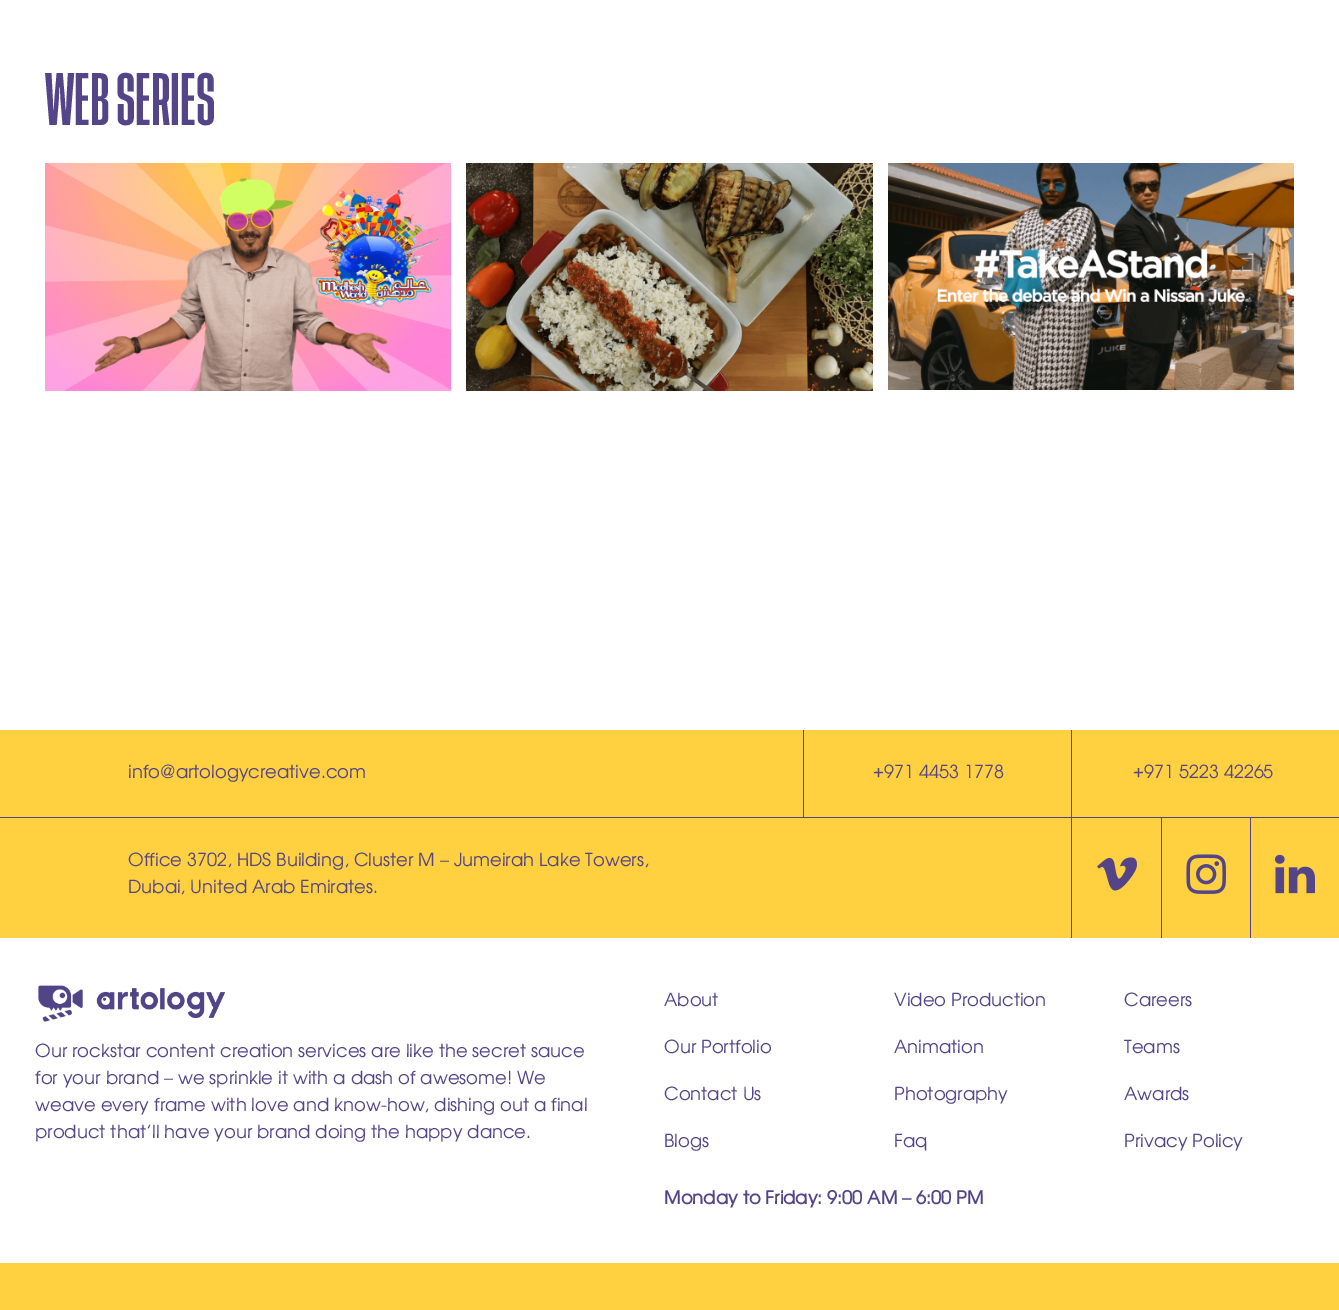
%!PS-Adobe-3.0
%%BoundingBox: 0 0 1339 1310
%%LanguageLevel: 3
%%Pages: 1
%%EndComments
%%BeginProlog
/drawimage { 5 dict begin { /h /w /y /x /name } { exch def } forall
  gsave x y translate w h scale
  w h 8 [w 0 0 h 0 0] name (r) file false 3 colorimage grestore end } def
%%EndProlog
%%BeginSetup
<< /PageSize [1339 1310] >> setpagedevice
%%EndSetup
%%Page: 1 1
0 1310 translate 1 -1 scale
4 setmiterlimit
1 setgray
0 0 1339 1310 rectfill
(images/1.raw) 45 163 406 228 drawimage
(images/2.raw) 466 163 407 228 drawimage
(images/3.raw) 888 163 406 227 drawimage
1 0.816 0.251 setrgbcolor
0 730 1339 87 rectfill
0.325 0.271 0.533 setrgbcolor
803 730 1 87 rectfill
1071 730 1 87 rectfill
1 0.816 0.251 setrgbcolor
0 818 1339 120 rectfill
0.325 0.271 0.533 setrgbcolor
0 817 1339 1 rectfill
1071 818 1 120 rectfill
(images/4.raw) 1097 857 40 34 drawimage
1161 818 1 120 rectfill
(images/5.raw) 1186 854 40 40 drawimage
1250 818 1 120 rectfill
(images/6.raw) 1275 854 40 40 drawimage
(images/7.raw) 38 985 45 37 drawimage
(images/8.raw) 96 988 129 30 drawimage
1 0.816 0.251 setrgbcolor
0 1263 1339 47 rectfill
/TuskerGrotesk-SemiBold [55 0 0 -55 0 0] selectfont
0.325 0.271 0.533 setrgbcolor
45 125 moveto (WEB SERIES) show
/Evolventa-Regular [18 0 0 -18 0 0] selectfont
128 778 moveto (info@artologycreative.com) show
873 778 moveto (+971 4453 1778) show
1133 778 moveto (+971 5223 42265) show
128 866 moveto (Office 3702, HDS Building, Cluster M – Jumeirah Lake Towers,) show
128 893 moveto (Dubai, United Arab Emirates.) show
35 1057 moveto (Our rockstar content creation services are like the secret sauce) show
35 1084 moveto (for your brand – we sprinkle it with a dash of awesome! We) show
35 1111 moveto (weave every frame with love and know-how, dishing out a final) show
35 1138 moveto (product that’ll have your brand doing the happy dance.) show
664 1006 moveto (About) show
894 1006 moveto (Video Production) show
1124 1006 moveto (Careers) show
664 1053 moveto (Our Portfolio) show
894 1053 moveto (Animation) show
1124 1053 moveto (Teams) show
664 1100 moveto (Contact Us) show
894 1100 moveto (Photography) show
1124 1100 moveto (Awards) show
664 1147 moveto (Blogs) show
894 1147 moveto (Faq) show
1124 1147 moveto (Privacy Policy) show
/Evolventa-Bold [18 0 0 -18 0 0] selectfont
664 1204 moveto (Monday to Friday: 9:00 AM – 6:00 PM) show
showpage
%%EOF
